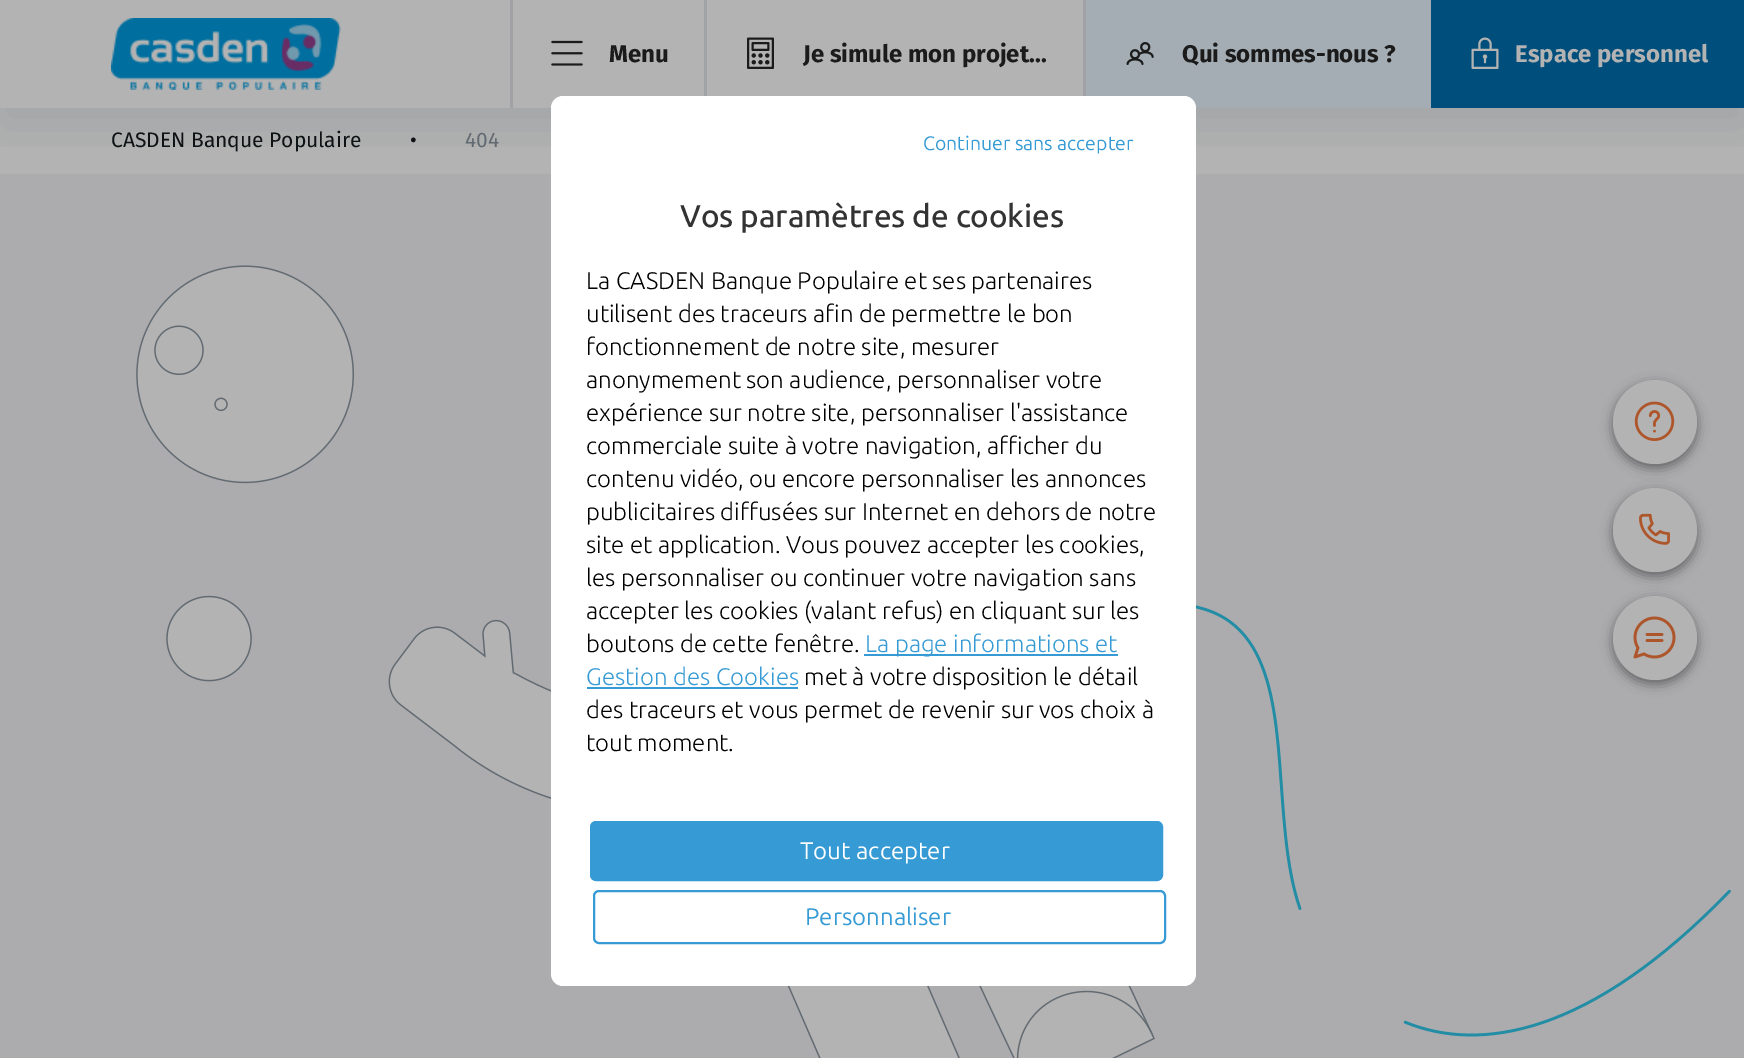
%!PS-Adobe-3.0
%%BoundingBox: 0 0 1744 1058
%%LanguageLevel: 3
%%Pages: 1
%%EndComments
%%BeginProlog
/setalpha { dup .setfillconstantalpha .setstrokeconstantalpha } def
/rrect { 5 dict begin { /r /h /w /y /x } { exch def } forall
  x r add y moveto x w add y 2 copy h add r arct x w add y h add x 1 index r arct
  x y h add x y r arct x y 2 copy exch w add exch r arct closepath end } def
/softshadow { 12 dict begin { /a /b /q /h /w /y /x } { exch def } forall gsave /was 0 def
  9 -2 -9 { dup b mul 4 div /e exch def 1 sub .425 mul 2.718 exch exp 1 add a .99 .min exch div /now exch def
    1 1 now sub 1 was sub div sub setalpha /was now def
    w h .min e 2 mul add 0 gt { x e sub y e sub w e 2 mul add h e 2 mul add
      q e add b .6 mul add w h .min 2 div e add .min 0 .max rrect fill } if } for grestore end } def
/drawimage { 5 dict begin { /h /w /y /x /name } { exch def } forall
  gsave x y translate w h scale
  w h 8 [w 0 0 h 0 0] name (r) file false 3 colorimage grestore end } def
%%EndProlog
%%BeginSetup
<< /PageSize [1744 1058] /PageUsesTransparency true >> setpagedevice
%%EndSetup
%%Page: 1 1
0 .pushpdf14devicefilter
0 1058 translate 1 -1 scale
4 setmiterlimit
0.702 setgray
0 0 1744 1058 rectfill
0.675 0.675 0.686 setrgbcolor
0 174 1744 884 rectfill
gsave
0 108 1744 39 rectclip
0 0.078 0.196 setrgbcolor
0 17 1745 108 0 26 0.1 softshadow
grestore
(images/1.raw) 111 18 230 72 drawimage
0.627 0.635 0.647 setrgbcolor
510 0 3 108 rectfill
(images/2.raw) 551 40 32 26 drawimage
704 0 3 96 rectfill
(images/3.raw) 747 37 27 32 drawimage
0.643 0.678 0.702 setrgbcolor
1086 0 345 108 rectfill
0.627 0.635 0.647 setrgbcolor
1083 0 3 96 rectfill
(images/4.raw) 1126 42 28 23 drawimage
0 0.306 0.482 setrgbcolor
1431 0 313 108 rectfill
(images/5.raw) 1471 37 28 32 drawimage
(images/6.raw) 136 265 1595 793 drawimage
0 setgray
1613 384 84 84 42 6 0.24 softshadow
1613 384 84 84 42 6 0.24 softshadow
0.702 setgray
newpath 1655 422 42 0 360 arc closepath fill
(images/7.raw) 1634 401 41 40 drawimage
0 setgray
1613 492 84 84 42 6 0.24 softshadow
1613 492 84 84 42 6 0.24 softshadow
0.702 setgray
newpath 1655 530 42 0 360 arc closepath fill
(images/8.raw) 1639 513 31 32 drawimage
0 setgray
1613 600 84 84 42 6 0.24 softshadow
1613 600 84 84 42 6 0.24 softshadow
0.702 setgray
newpath 1655 638 42 0 360 arc closepath fill
(images/9.raw) 1633 616 43 43 drawimage
1 setgray
newpath 563 96 moveto 1184 96 lineto 1190.5 96 1196 101.5 1196 108 curveto 1196 240 lineto 551 240 lineto 551 108 lineto 551 101.5 556.5 96 563 96 curveto closepath fill
551 240 645 542 rectfill
0.212 0.604 0.831 setrgbcolor
864 654 254 2 rectfill
587 687 211 2 rectfill
1 setgray
newpath 551 782 moveto 1196 782 lineto 1196 974 lineto 1196 980.5 1190.5 986 1184 986 curveto 563 986 lineto 556.5 986 551 980.5 551 974 curveto closepath fill
0.212 0.604 0.831 setrgbcolor
591 822 571 58 5 rrect gsave fill grestore
2 setlinewidth
stroke
594 891 571 52 5 rrect stroke
/FiraSans-Bold [24 0 0 -24 0 0] selectfont
0.106 setgray
609 62 moveto (Menu) show
803 62 moveto (Je simule mon projet...) show
1182 62 moveto (Qui sommes-nous ?) show
0.702 setgray
1515 62 moveto (Espace personnel) show
/FiraSans-Regular [21 0 0 -21 0 0] selectfont
0.051 0.071 0.078 setrgbcolor
111 147 moveto (CASDEN Banque Populaire) show
410 147 moveto (•) show
0.384 0.416 0.447 setrgbcolor
465 147 moveto (404) show
/Ubuntu-Regular [19.5 0 0 -19.5 0 0] selectfont
0.212 0.604 0.831 setrgbcolor
923 150 moveto (Continuer sans accepter) show
/Ubuntu-Medium [31.5 0 0 -31.5 0 0] selectfont
0.2 setgray
680 227 moveto -0.15 0 (Vos paramètres de cookies) ashow
/Ubuntu-Light [24 0 0 -24 0 0] selectfont
0 setgray
586 289 moveto (La CASDEN Banque Populaire et ses partenaires) show
586 322 moveto (utilisent des traceurs afin de permettre le bon) show
586 355 moveto (fonctionnement de notre site, mesurer) show
586 388 moveto (anonymement son audience, personnaliser votre) show
586 421 moveto (expérience sur notre site, personnaliser l'assistance) show
586 454 moveto (commerciale suite à votre navigation, afficher du) show
586 487 moveto (contenu vidéo, ou encore personnaliser les annonces) show
586 520 moveto (publicitaires diffusées sur Internet en dehors de notre) show
586 553 moveto (site et application. Vous pouvez accepter les cookies,) show
586 586 moveto (les personnaliser ou continuer votre navigation sans) show
586 619 moveto (accepter les cookies \(valant refus\) en cliquant sur les) show
586 652 moveto (boutons de cette fenêtre.) show
0.212 0.604 0.831 setrgbcolor
865 652 moveto (La page informations et) show
586 685 moveto (Gestion des Cookies) show
0 setgray
804 685 moveto (met à votre disposition le détail) show
586 718 moveto (des traceurs et vous permet de revenir sur vos choix à) show
586 751 moveto (tout moment.) show
/Ubuntu-Regular [24 0 0 -24 0 0] selectfont
1 setgray
800 859 moveto (Tout accepter) show
0.212 0.604 0.831 setrgbcolor
805 925 moveto (Personnaliser) show
.poppdf14devicefilter showpage
%%EOF
